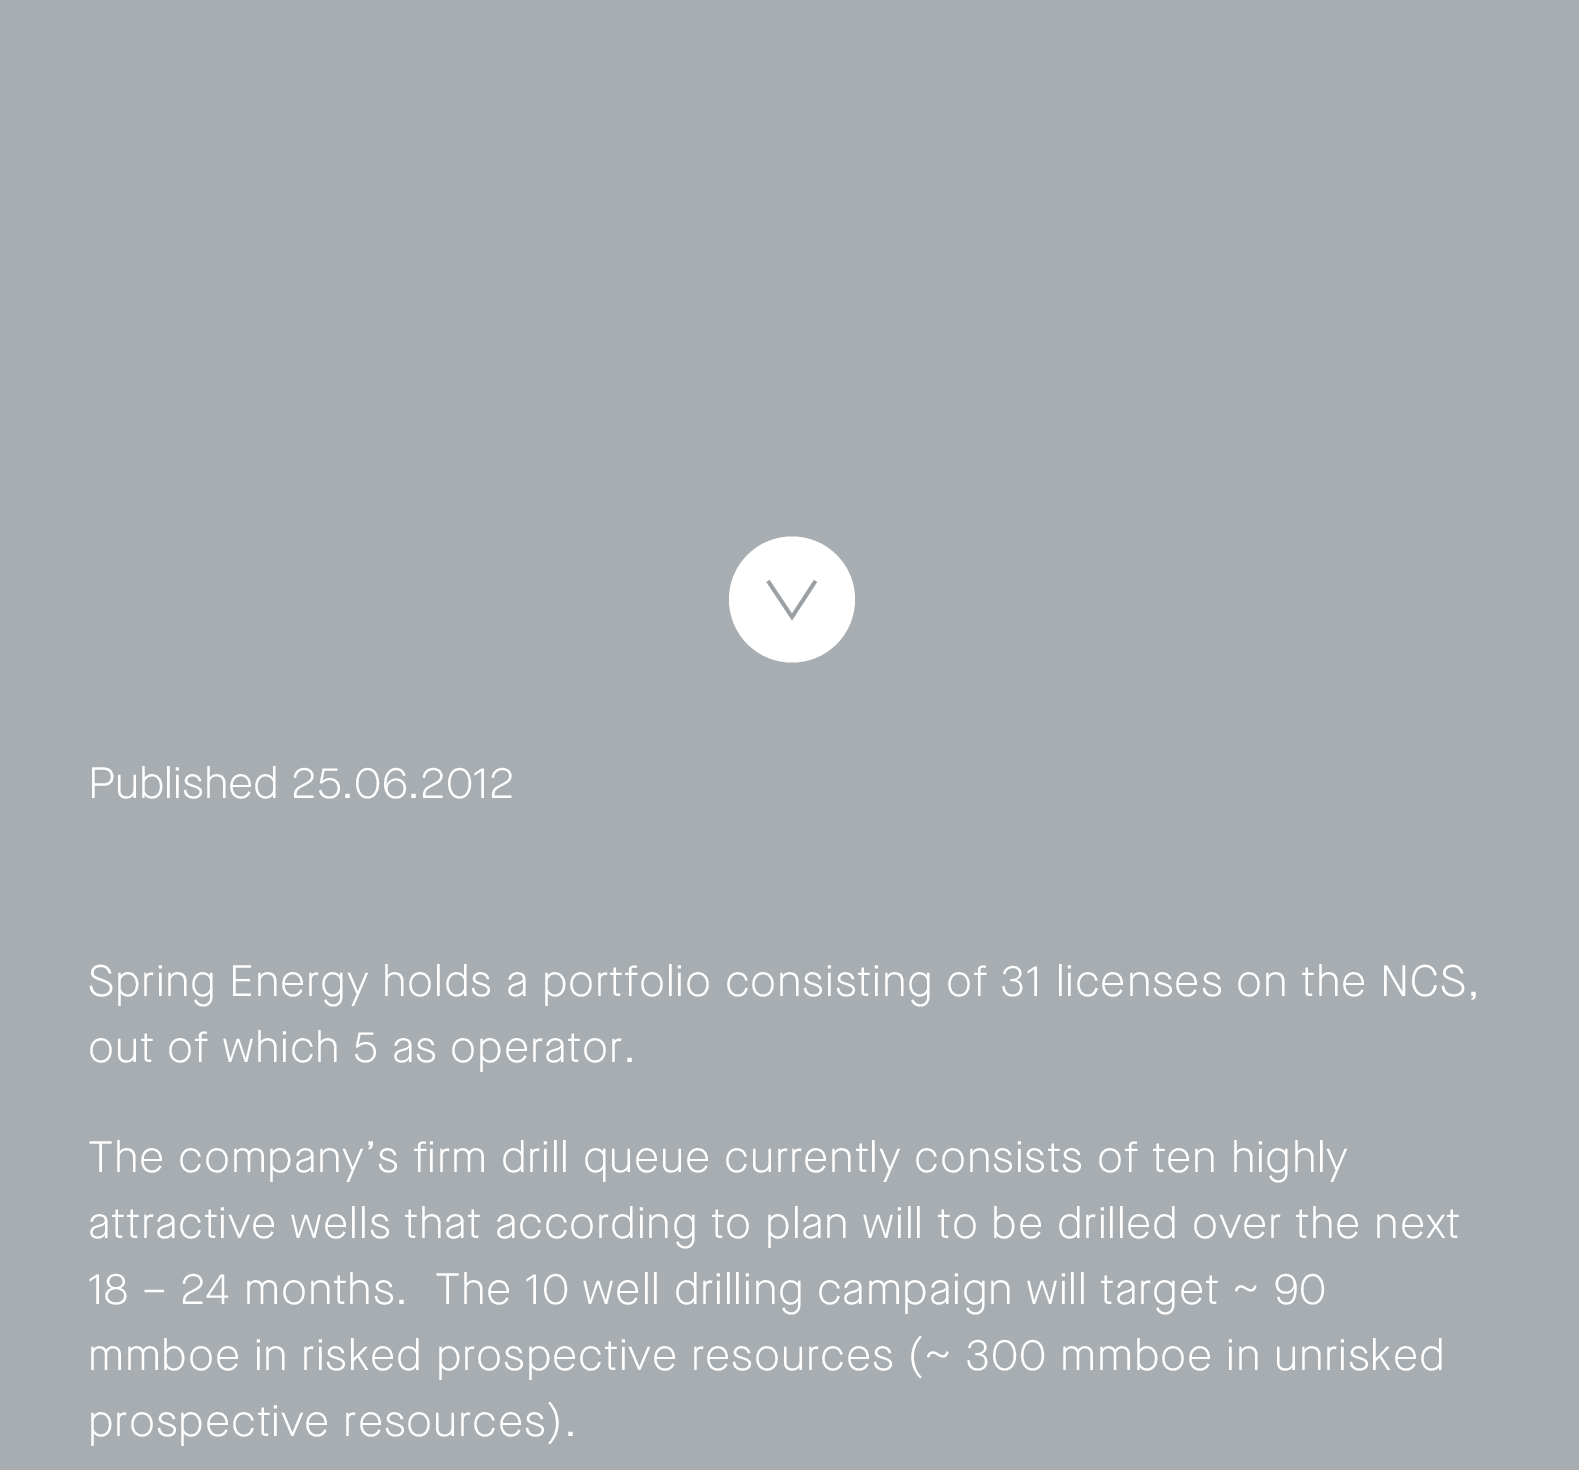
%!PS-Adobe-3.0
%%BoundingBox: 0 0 1579 1470
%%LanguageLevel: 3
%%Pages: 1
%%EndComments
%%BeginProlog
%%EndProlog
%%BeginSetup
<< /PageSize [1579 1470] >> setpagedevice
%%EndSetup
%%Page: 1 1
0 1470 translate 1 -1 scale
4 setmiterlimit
0.655 0.678 0.694 setrgbcolor
0 0 1579 1470 rectfill
1 setgray
newpath 792 599.5 63 0 360 arc closepath fill
0.608 0.627 0.647 setrgbcolor
3.7 setlinewidth
newpath 815.5 581 moveto 792 617 lineto 768 581 lineto stroke
/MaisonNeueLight-Light [44 0 0 -44 0 0] selectfont
1 setgray
88 798 moveto (Published 25.06.2012) show
88 996 moveto 0.82 0 (Spring Energy holds a portfolio consisting of 31 licenses on the NCS,) ashow
88 1062 moveto 0.82 0 (out of which 5 as operator.) ashow
88 1172 moveto 0.82 0 (The company’s firm drill queue currently consists of ten highly) ashow
88 1238 moveto 0.82 0 (attractive wells that according to plan will to be drilled over the next) ashow
88 1304 moveto 0.82 0 (18 – 24 months.  The 10 well drilling campaign will target ~ 90) ashow
88 1370 moveto 0.82 0 (mmboe in risked prospective resources \(~ 300 mmboe in unrisked) ashow
88 1436 moveto 0.82 0 (prospective resources\).) ashow
showpage
%%EOF
